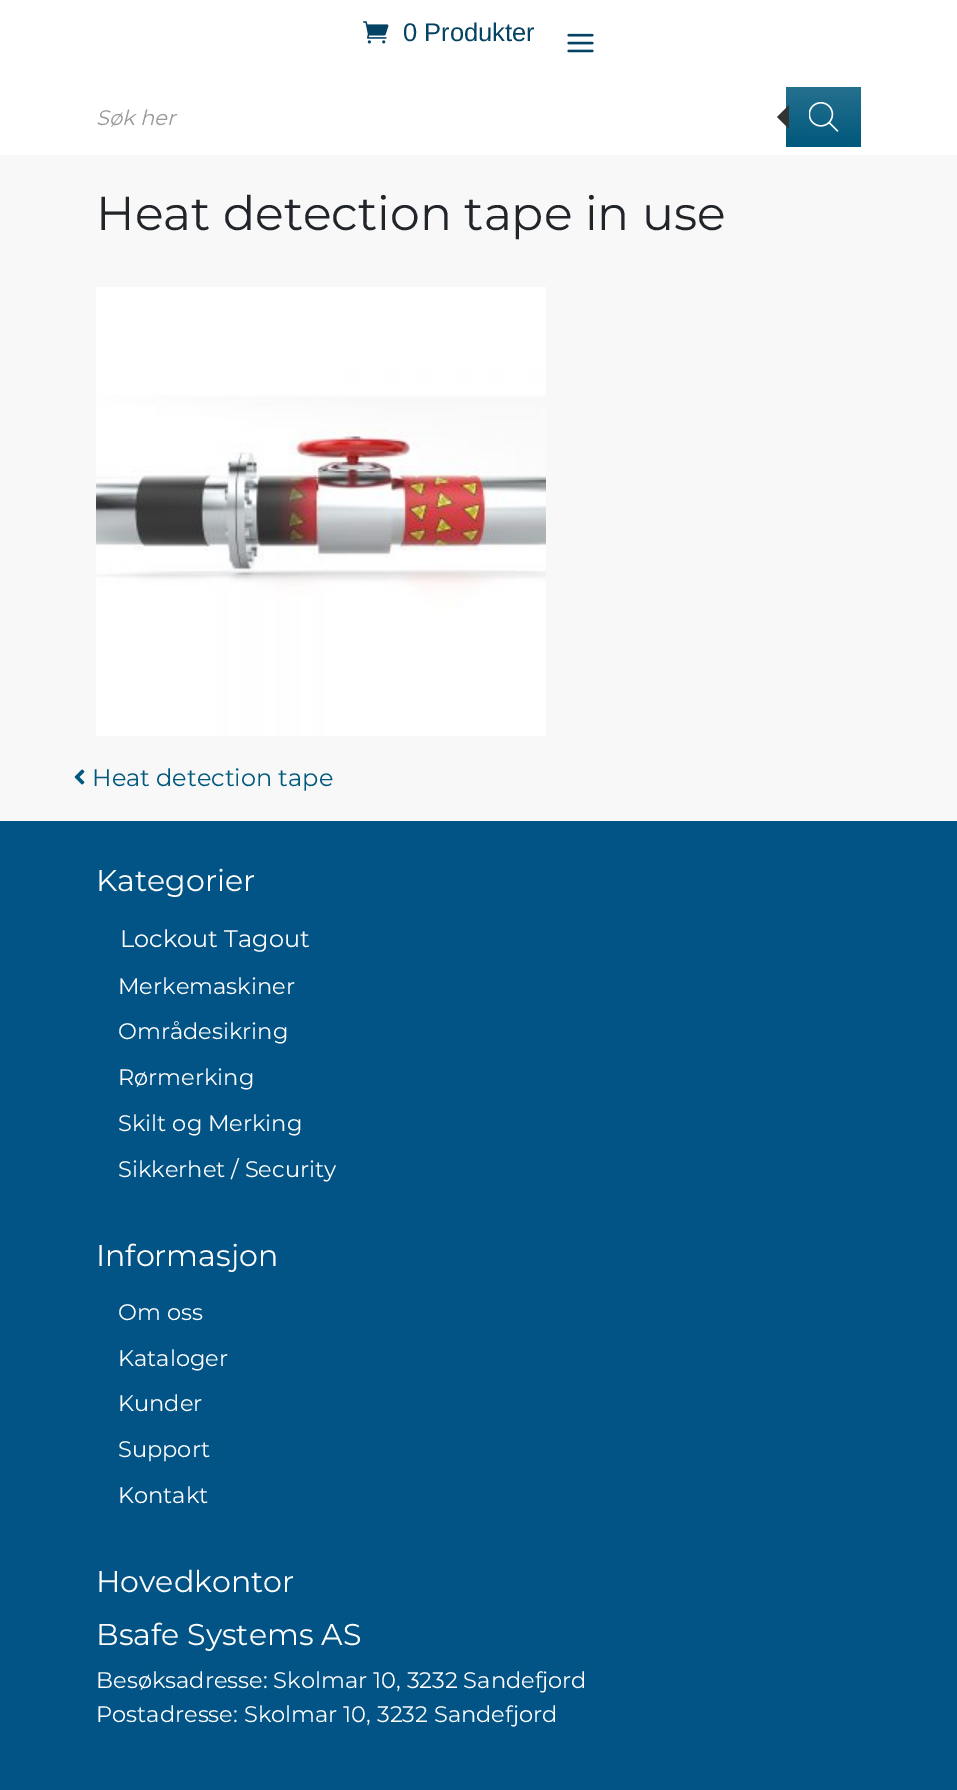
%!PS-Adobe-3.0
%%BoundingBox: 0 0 957 1790
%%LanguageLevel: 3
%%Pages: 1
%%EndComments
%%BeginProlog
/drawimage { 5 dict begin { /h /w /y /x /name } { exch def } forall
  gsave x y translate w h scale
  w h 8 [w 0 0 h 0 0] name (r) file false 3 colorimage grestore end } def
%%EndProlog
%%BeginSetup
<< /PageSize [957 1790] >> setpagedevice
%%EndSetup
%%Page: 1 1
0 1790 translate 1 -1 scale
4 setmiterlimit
0.973 setgray
0 0 957 1790 rectfill
1 setgray
0 0 957 155 rectfill
(images/1.raw) 363 21 26 23 drawimage
(images/2.raw) 567 33 27 20 drawimage
gsave newpath 786 87 moveto 858 87 lineto 859.5 87 861 88.5 861 90 curveto 861 144 lineto 861 145.5 859.5 147 858 147 curveto 786 147 lineto closepath clip newpath
<< /ShadingType 2 /ColorSpace /DeviceRGB /Coords [824 87 824 147] /Extend [true true] /Function << /FunctionType 2 /Domain [0 1] /C0 [0.145 0.439 0.561] /C1 [0 0.345 0.486] /N 1 >> >> shfill grestore
0.2 setgray
newpath 789 105 moveto 789 129 lineto 777 117 lineto closepath fill
(images/3.raw) 809 102 30 30 drawimage
(images/4.raw) 96 287 450 449 drawimage
(images/5.raw) 74 769 11 16 drawimage
0.008 0.329 0.529 setrgbcolor
0 821 957 969 rectfill
/LiberationSans-Regular [25.5 0 0 -25.5 0 0] selectfont
0.016 0.263 0.388 setrgbcolor
403 41 moveto (0 Produkter) show
/Montserrat-ThinItalic [21 0 0 -21 0 0] selectfont
0.6 setgray
96 125 moveto (Søk her) show
/Montserrat-Thin [47.4 0 0 -47.4 0 0] selectfont
0.129 0.145 0.161 setrgbcolor
96 230 moveto (Heat detection tape in use) show
/Montserrat-Thin [24 0 0 -24 0 0] selectfont
0 0.345 0.486 setrgbcolor
92 786 moveto (Heat detection tape) show
/Montserrat-Thin [30 0 0 -30 0 0] selectfont
1 setgray
96 891 moveto (Kategorier) show
/Montserrat-Thin [24 0 0 -24 0 0] selectfont
120 947 moveto (Lockout Tagout) show
/Montserrat-Thin [22.5 0 0 -22.5 0 0] selectfont
118 994 moveto (Merkemaskiner) show
118 1039 moveto (Områdesikring) show
118 1085 moveto (Rørmerking) show
118 1131 moveto (Skilt og Merking) show
118 1177 moveto (Sikkerhet / Security) show
/Montserrat-Thin [30 0 0 -30 0 0] selectfont
96 1266 moveto (Informasjon) show
/Montserrat-Thin [22.5 0 0 -22.5 0 0] selectfont
118 1320 moveto (Om oss) show
118 1366 moveto (Kataloger) show
118 1411 moveto (Kunder) show
118 1457 moveto (Support) show
118 1503 moveto (Kontakt) show
/Montserrat-Thin [30 0 0 -30 0 0] selectfont
96 1592 moveto (Hovedkontor) show
96 1645 moveto (Bsafe Systems AS) show
/Montserrat-Thin [22.5 0 0 -22.5 0 0] selectfont
96 1688 moveto (Besøksadresse: Skolmar 10, 3232 Sandefjord) show
96 1722 moveto (Postadresse: Skolmar 10, 3232 Sandefjord) show
showpage
%%EOF
